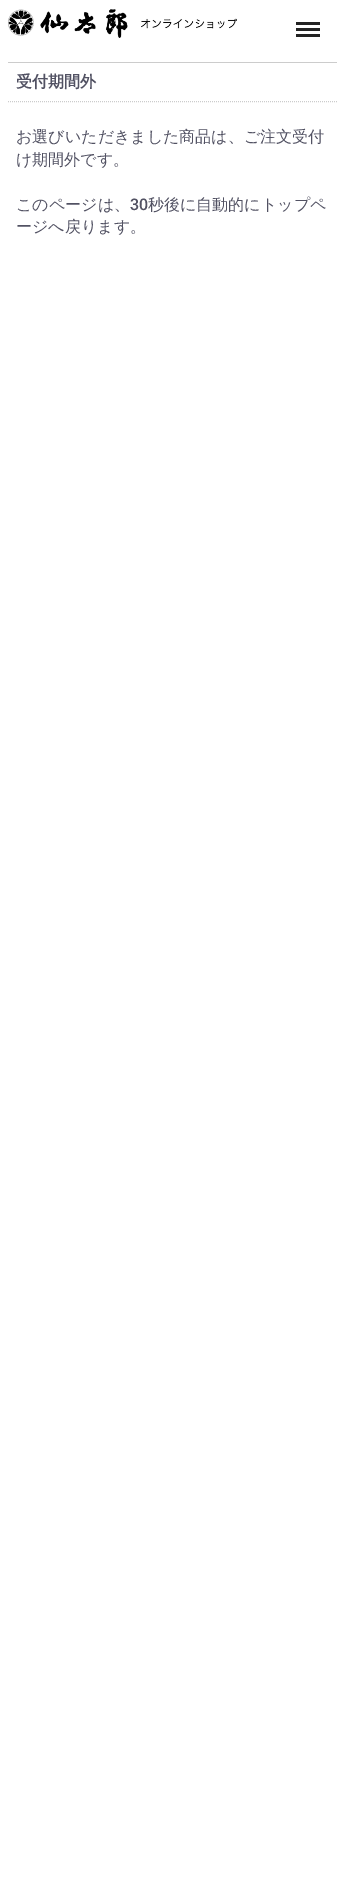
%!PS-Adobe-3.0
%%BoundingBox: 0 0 345 1888
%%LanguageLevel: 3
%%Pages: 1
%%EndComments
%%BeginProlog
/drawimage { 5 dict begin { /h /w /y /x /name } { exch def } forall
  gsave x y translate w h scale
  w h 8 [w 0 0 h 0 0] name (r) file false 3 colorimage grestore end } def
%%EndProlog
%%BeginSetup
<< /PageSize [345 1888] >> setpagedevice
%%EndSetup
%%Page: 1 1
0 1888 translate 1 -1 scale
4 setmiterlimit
1 setgray
0 0 345 1888 rectfill
(images/1.raw) 8 9 229 29 drawimage
0.137 setgray
296 28 24 3 rectfill
296 22 24 3 rectfill
296 34 24 3 rectfill
0.8 setgray
8 62 329 1 rectfill
[1 1] 0 setdash
newpath 8 101.5 moveto 337 101.5 lineto stroke
/WenQuanYiZenHei-Bold [16 0 0 -16 0 0] selectfont
0.322 0.322 0.388 setrgbcolor
16 87 moveto (受付期間外) show
/WenQuanYiZenHei-Medium [16 0 0 -16 0 0] selectfont
16 142 moveto (お選びいただきました商品は、ご注文受付) show
16 165 moveto (け期間外です。) show
16 210 moveto (このページは、) show
/Roboto-Medium [16 0 0 -16 0 0] selectfont
130 210 moveto (30) show
/WenQuanYiZenHei-Medium [16 0 0 -16 0 0] selectfont
148 210 moveto (秒後に自動的にトップペ) show
16 232 moveto (ージへ戻ります。) show
showpage
%%EOF
